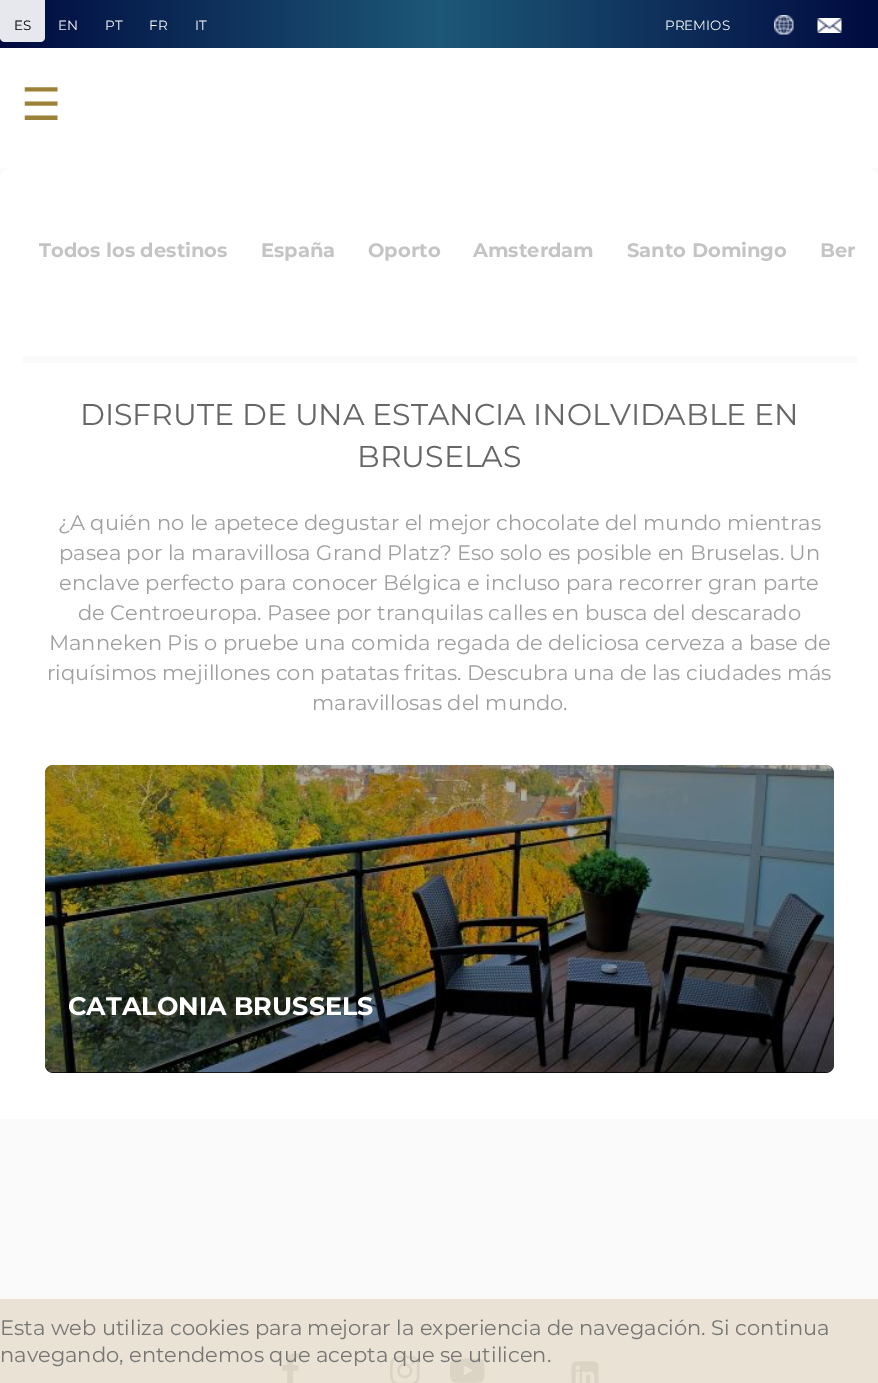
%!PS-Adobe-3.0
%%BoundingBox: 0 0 878 1383
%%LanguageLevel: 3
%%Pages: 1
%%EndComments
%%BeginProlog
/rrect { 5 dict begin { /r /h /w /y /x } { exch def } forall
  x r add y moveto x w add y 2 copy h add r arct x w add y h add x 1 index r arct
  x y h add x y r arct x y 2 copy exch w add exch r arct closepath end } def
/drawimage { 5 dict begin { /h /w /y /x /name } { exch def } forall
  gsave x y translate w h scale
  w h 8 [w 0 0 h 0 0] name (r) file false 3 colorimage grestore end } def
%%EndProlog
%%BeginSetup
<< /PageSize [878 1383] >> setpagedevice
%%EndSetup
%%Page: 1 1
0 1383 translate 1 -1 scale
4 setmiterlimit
0.98 setgray
0 0 878 1383 rectfill
gsave newpath 0 0 moveto 878 0 lineto 878 48 lineto 0 48 lineto closepath clip newpath
<< /ShadingType 2 /ColorSpace /DeviceRGB /Coords [0 24 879 24] /Extend [true true] /Function << /FunctionType 3 /Domain [0 1] /Functions [<< /FunctionType 2 /Domain [0 1] /C0 [0 0.039 0.247] /C1 [0.114 0.345 0.471] /N 1 >> << /FunctionType 2 /Domain [0 1] /C0 [0.114 0.345 0.471] /C1 [0 0.039 0.247] /N 1 >>] /Bounds [0.5] /Encode [0 1 0 1] >> >> shfill grestore
0.902 0.91 0.929 setrgbcolor
newpath 0 0 moveto 45 0 lineto 45 37 lineto 45 40 43 42 40 42 curveto 5 42 lineto 2 42 0 40 0 37 curveto closepath fill
(images/1.raw) 774 15 20 20 drawimage
(images/2.raw) 817 18 25 15 drawimage
1 setgray
0 48 878 120 rectfill
newpath 12 168 moveto 867 168 lineto 873.5 168 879 173.5 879 180 curveto 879 1119 lineto 0 1119 lineto 0 180 lineto 0 173.5 5.5 168 12 168 curveto closepath fill
0.98 setgray
23 356 834 7 rectfill
0 setgray
45 765 789 308 8 rrect fill
(images/3.raw) 45 765 789 308 drawimage
0.918 0.89 0.835 setrgbcolor
0 1299 878 84 rectfill
(images/4.raw) 282 1353 17 30 drawimage
(images/5.raw) 390 1355 30 28 drawimage
(images/6.raw) 450 1358 35 25 drawimage
(images/7.raw) 571 1361 28 22 drawimage
/Montserrat-Regular [13.5 0 0 -13.5 0 0] selectfont
0 setgray
14 30 moveto (ES) show
1 setgray
58 30 moveto (EN) show
105 30 moveto (PT) show
149 30 moveto (FR) show
195 30 moveto (IT) show
665 30 moveto (PREMIOS) show
/DejaVuSans-Regular [45 0 0 -45 0 0] selectfont
0.612 0.51 0.22 setrgbcolor
21 120 moveto (☰) show
/Montserrat-Bold [19.5 0 0 -19.5 0 0] selectfont
0.769 setgray
39 257 moveto (Todos los destinos) show
261 257 moveto (España) show
368 257 moveto (Oporto) show
473 257 moveto (Amsterdam) show
627 257 moveto (Santo Domingo) show
820 257 moveto (Ber) show
/Montserrat-Regular [30 0 0 -30 0 0] selectfont
0.4 setgray
80 425 moveto (DISFRUTE DE UNA ESTANCIA INOLVIDABLE EN) show
357 467 moveto (BRUSELAS) show
/Montserrat-Regular [21 0 0 -21 0 0] selectfont
0.627 0.624 0.624 setrgbcolor
58 530 moveto (¿A quién no le apetece degustar el mejor chocolate del mundo mientras) show
59 560 moveto (pasea por la maravillosa Grand Platz? Eso solo es posible en Bruselas. Un) show
59 590 moveto (enclave perfecto para conocer Bélgica e incluso para recorrer gran parte) show
78 620 moveto (de Centroeuropa. Pasee por tranquilas calles en busca del descarado) show
49 650 moveto (Manneken Pis o pruebe una comida regada de deliciosa cerveza a base de) show
47 680 moveto (riquísimos mejillones con patatas fritas. Descubra una de las ciudades más) show
312 710 moveto (maravillosas del mundo.) show
/Montserrat-Bold [25.5 0 0 -25.5 0 0] selectfont
1 setgray
68 1015 moveto (CATALONIA BRUSSELS) show
/Montserrat-Regular [21 0 0 -21 0 0] selectfont
0.463 0.463 0.459 setrgbcolor
0 1335 moveto (Esta web utiliza cookies para mejorar la experiencia de navegación. Si continua) show
0 1362 moveto (navegando, entendemos que acepta que se utilicen.) show
showpage
%%EOF
